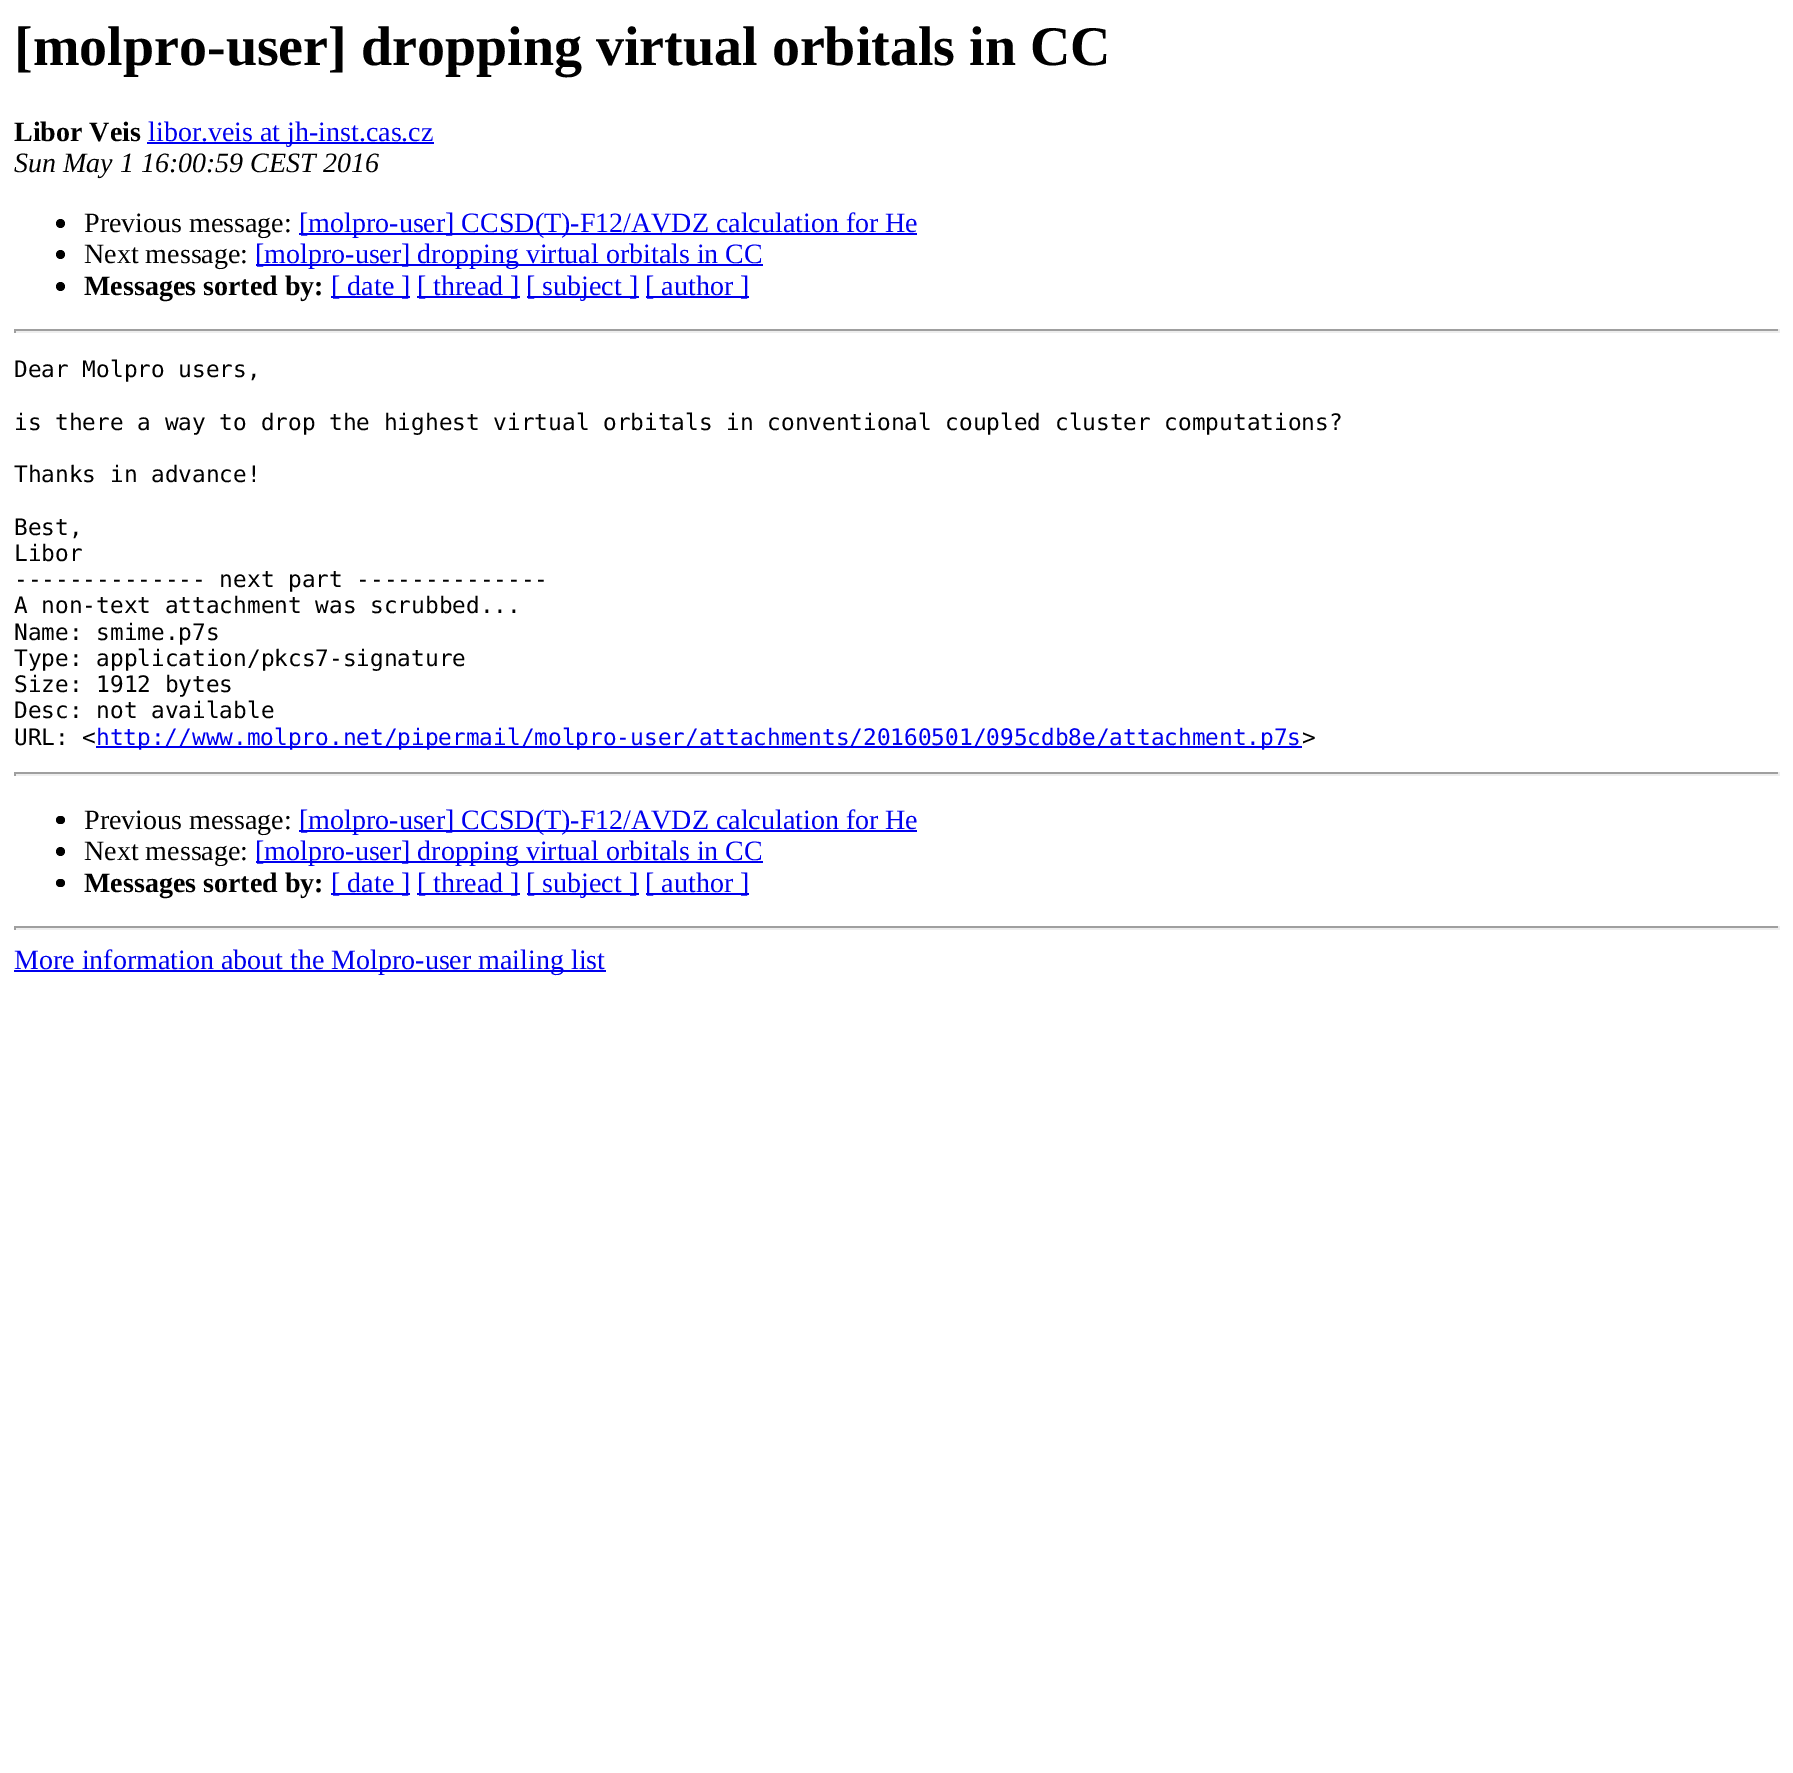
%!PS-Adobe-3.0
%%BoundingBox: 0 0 1793 1773
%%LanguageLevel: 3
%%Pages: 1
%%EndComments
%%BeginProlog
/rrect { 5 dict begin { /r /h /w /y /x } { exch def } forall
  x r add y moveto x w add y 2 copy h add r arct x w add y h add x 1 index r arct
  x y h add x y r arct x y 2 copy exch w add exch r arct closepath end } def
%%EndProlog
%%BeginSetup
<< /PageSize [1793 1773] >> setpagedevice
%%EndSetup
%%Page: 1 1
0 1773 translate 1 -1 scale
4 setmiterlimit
1 setgray
0 0 1793 1773 rectfill
0 0 0.933 setrgbcolor
147 142 287 2 rectfill
0 setgray
newpath 60.5 223.5 4.5 0 360 arc closepath fill
0 0 0.933 setrgbcolor
299 233 618 2 rectfill
0 setgray
newpath 60.5 254.5 4.5 0 360 arc closepath fill
0 0 0.933 setrgbcolor
256 264 507 2 rectfill
0 setgray
newpath 60.5 286.5 4.5 0 360 arc closepath fill
0 0 0.933 setrgbcolor
331 296 79 2 rectfill
417 296 103 2 rectfill
527 296 112 2 rectfill
646 296 103 2 rectfill
0.624 setgray
14 329 1766 2 rectfill
0.933 setgray
1778 329 2 4 rectfill
14 331 1766 2 rectfill
0.624 setgray
14 329 2 4 rectfill
0 0 0.933 setrgbcolor
96 746 1206 2 rectfill
0.624 setgray
14 772 1766 2 rectfill
0.933 setgray
1778 772 2 4 rectfill
14 774 1766 2 rectfill
0.624 setgray
14 772 2 4 rectfill
0 setgray
56 816 9 8 4 rrect fill
0 0 0.933 setrgbcolor
299 830 618 2 rectfill
0 setgray
newpath 60.5 851.5 4.5 0 360 arc closepath fill
0 0 0.933 setrgbcolor
256 861 507 2 rectfill
0 setgray
56 879 9 8 4 rrect fill
0 0 0.933 setrgbcolor
331 893 79 2 rectfill
417 893 103 2 rectfill
527 893 112 2 rectfill
646 893 103 2 rectfill
0.624 setgray
14 926 1766 2 rectfill
0.933 setgray
1778 926 2 4 rectfill
14 928 1766 2 rectfill
0.624 setgray
14 926 2 4 rectfill
0 0 0.933 setrgbcolor
14 970 592 2 rectfill
/LiberationSerif-Bold [56 0 0 -56 0 0] selectfont
0 setgray
14 65 moveto ([molpro-user] dropping virtual orbitals in CC) show
/LiberationSerif-Bold [28 0 0 -28 0 0] selectfont
14 141 moveto (Libor Veis) show
/LiberationSerif-Regular [28 0 0 -28 0 0] selectfont
0 0 0.933 setrgbcolor
148 141 moveto (libor.veis at jh-inst.cas.cz) show
/LiberationSerif-Italic [28 0 0 -28 0 0] selectfont
0 setgray
14 172 moveto (Sun May 1 16:00:59 CEST 2016) show
/LiberationSerif-Regular [28 0 0 -28 0 0] selectfont
84 232 moveto (Previous message:) show
0 0 0.933 setrgbcolor
299 232 moveto ([molpro-user] CCSD\(T\)-F12/AVDZ calculation for He) show
0 setgray
84 263 moveto (Next message:) show
0 0 0.933 setrgbcolor
255 263 moveto ([molpro-user] dropping virtual orbitals in CC) show
/LiberationSerif-Bold [28 0 0 -28 0 0] selectfont
0 setgray
84 295 moveto (Messages sorted by:) show
/LiberationSerif-Regular [28 0 0 -28 0 0] selectfont
0 0 0.933 setrgbcolor
331 295 moveto ([ date ]) show
417 295 moveto ([ thread ]) show
526 295 moveto ([ subject ]) show
645 295 moveto ([ author ]) show
/DejaVuSansMono-Regular [22.75 0 0 -22.75 0 0] selectfont
0 setgray
14 377 moveto (Dear Molpro users,) show
14 430 moveto (is there a way to drop the highest virtual orbitals in conventional coupled cluster computations?) show
14 482 moveto (Thanks in advance!) show
14 535 moveto (Best,) show
14 561 moveto (Libor) show
14 587 moveto (-------------- next part --------------) show
14 613 moveto (A non-text attachment was scrubbed...) show
14 640 moveto (Name: smime.p7s) show
14 666 moveto (Type: application/pkcs7-signature) show
14 692 moveto (Size: 1912 bytes) show
14 718 moveto (Desc: not available) show
14 745 moveto (URL: <) show
0 0 0.933 setrgbcolor
96 745 moveto (http://www.molpro.net/pipermail/molpro-user/attachments/20160501/095cdb8e/attachment.p7s) show
0 setgray
1302 745 moveto (>) show
/LiberationSerif-Regular [28 0 0 -28 0 0] selectfont
84 829 moveto (Previous message:) show
0 0 0.933 setrgbcolor
299 829 moveto ([molpro-user] CCSD\(T\)-F12/AVDZ calculation for He) show
0 setgray
84 860 moveto (Next message:) show
0 0 0.933 setrgbcolor
255 860 moveto ([molpro-user] dropping virtual orbitals in CC) show
/LiberationSerif-Bold [28 0 0 -28 0 0] selectfont
0 setgray
84 892 moveto (Messages sorted by:) show
/LiberationSerif-Regular [28 0 0 -28 0 0] selectfont
0 0 0.933 setrgbcolor
331 892 moveto ([ date ]) show
417 892 moveto ([ thread ]) show
526 892 moveto ([ subject ]) show
645 892 moveto ([ author ]) show
14 969 moveto (More information about the Molpro-user mailing list) show
showpage
%%EOF
